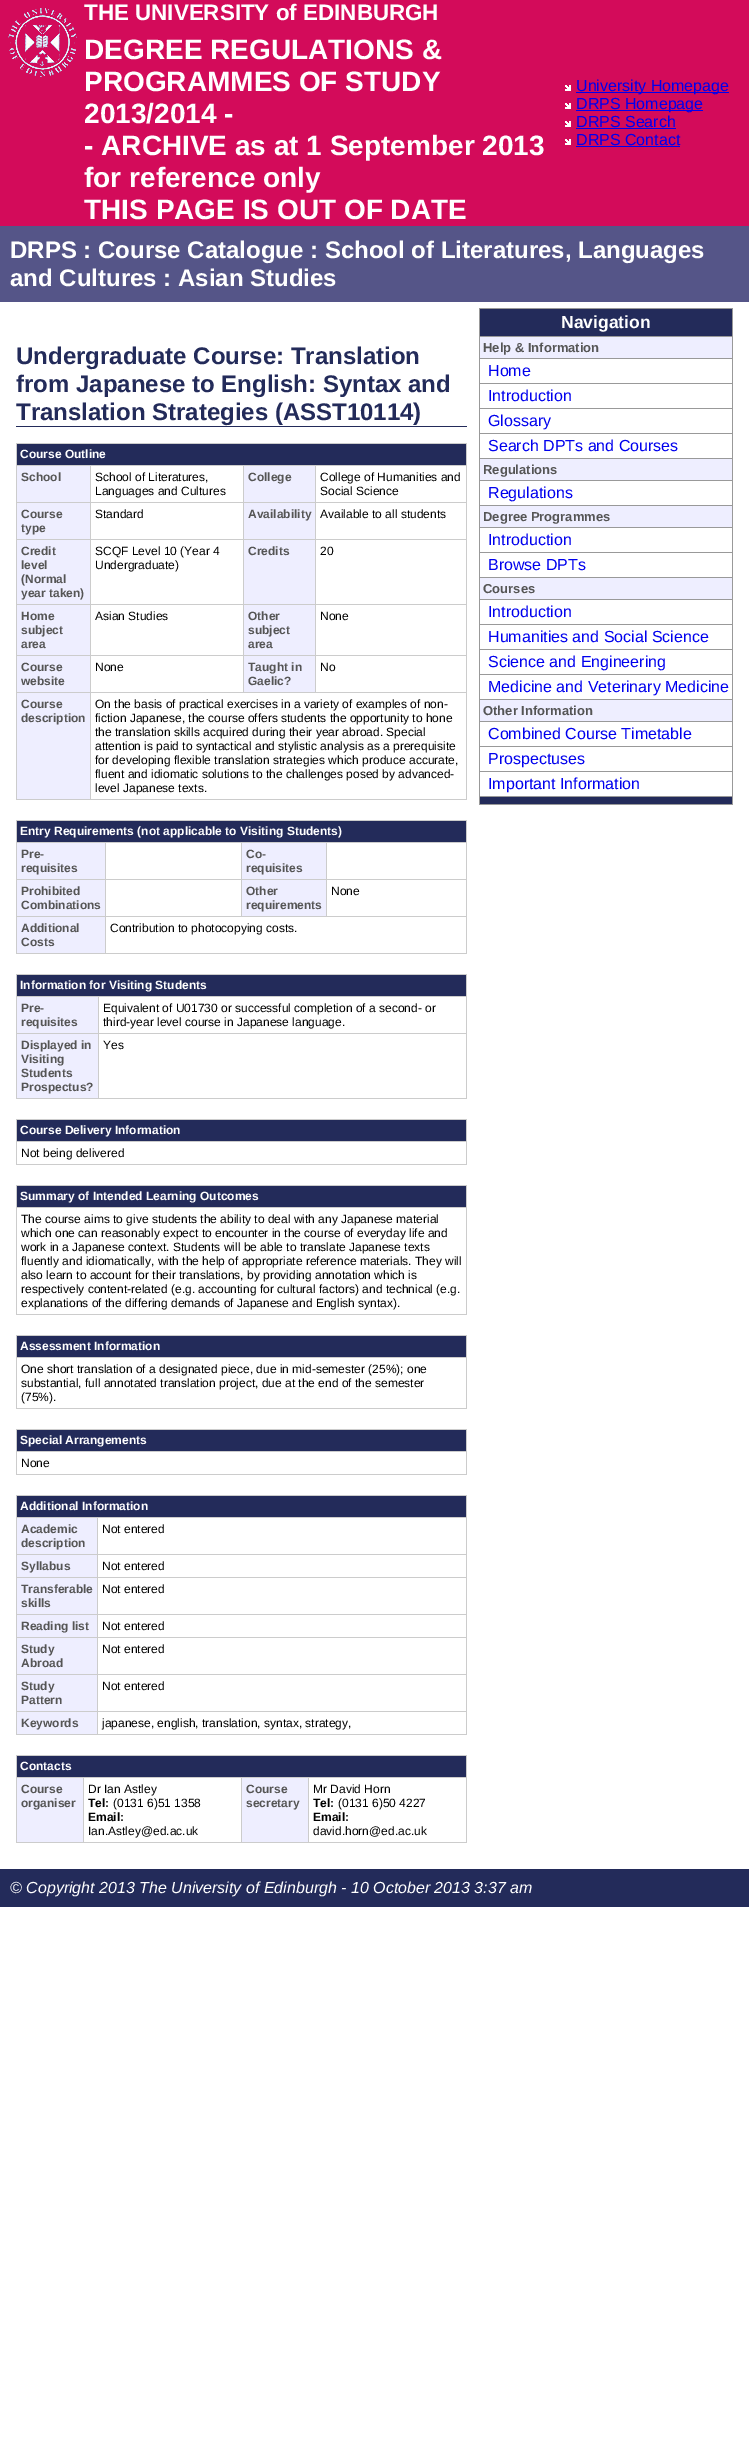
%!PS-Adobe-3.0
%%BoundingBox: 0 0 749 2459
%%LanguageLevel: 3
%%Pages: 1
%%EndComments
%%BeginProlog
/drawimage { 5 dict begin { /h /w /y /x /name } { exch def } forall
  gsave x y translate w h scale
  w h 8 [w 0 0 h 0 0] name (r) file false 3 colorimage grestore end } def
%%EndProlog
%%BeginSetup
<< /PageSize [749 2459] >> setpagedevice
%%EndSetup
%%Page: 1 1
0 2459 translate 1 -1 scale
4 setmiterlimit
1 setgray
0 0 749 2459 rectfill
0.827 0.043 0.353 setrgbcolor
0 0 749 226 rectfill
(images/1.raw) 8 8 69 69 drawimage
(images/2.raw) 565 85 6 6 drawimage
0 0 0.933 setrgbcolor
576 92 153 1 rectfill
(images/2.raw) 565 103 6 6 drawimage
576 110 127 1 rectfill
(images/2.raw) 565 121 6 6 drawimage
576 128 100 1 rectfill
(images/2.raw) 565 139 6 6 drawimage
576 146 104 1 rectfill
0.333 0.333 0.533 setrgbcolor
0 226 749 76 rectfill
0.137 0.169 0.353 setrgbcolor
16 426 451 1 rectfill
0.8 setgray
16 443 451 1 rectfill
466 443 1 357 rectfill
16 799 451 1 rectfill
16 443 1 357 rectfill
0.137 0.169 0.353 setrgbcolor
17 444 449 21 rectfill
0.933 0.933 1 setrgbcolor
17 466 73 36 rectfill
0.8 setgray
315 465 152 1 rectfill
315 502 152 1 rectfill
315 539 152 1 rectfill
315 604 152 1 rectfill
315 655 152 1 rectfill
90 692 377 1 rectfill
315 655 1 38 rectfill
243 655 73 1 rectfill
315 604 1 52 rectfill
243 604 73 1 rectfill
315 539 1 66 rectfill
243 539 73 1 rectfill
315 502 1 38 rectfill
243 502 73 1 rectfill
315 465 1 38 rectfill
243 465 73 1 rectfill
243 655 1 38 rectfill
90 655 154 1 rectfill
243 604 1 52 rectfill
90 604 154 1 rectfill
243 539 1 66 rectfill
90 539 154 1 rectfill
243 502 1 38 rectfill
90 502 154 1 rectfill
243 465 1 38 rectfill
90 465 154 1 rectfill
90 692 1 108 rectfill
16 692 75 1 rectfill
90 655 1 38 rectfill
16 655 75 1 rectfill
90 604 1 52 rectfill
16 604 75 1 rectfill
90 539 1 66 rectfill
16 539 75 1 rectfill
90 502 1 38 rectfill
16 502 75 1 rectfill
90 465 1 38 rectfill
16 465 75 1 rectfill
0.933 0.933 1 setrgbcolor
244 466 71 36 rectfill
17 503 73 36 rectfill
244 503 71 36 rectfill
17 540 73 64 rectfill
244 540 71 64 rectfill
17 605 73 50 rectfill
244 605 71 50 rectfill
17 656 73 36 rectfill
244 656 71 36 rectfill
17 693 73 106 rectfill
0.8 setgray
16 820 451 1 rectfill
466 820 1 134 rectfill
16 953 451 1 rectfill
16 820 1 134 rectfill
0.137 0.169 0.353 setrgbcolor
17 821 449 21 rectfill
0.933 0.933 1 setrgbcolor
17 843 88 36 rectfill
0.8 setgray
326 842 141 1 rectfill
326 879 141 1 rectfill
105 916 362 1 rectfill
326 879 1 38 rectfill
241 879 86 1 rectfill
326 842 1 38 rectfill
241 842 86 1 rectfill
241 879 1 38 rectfill
105 879 137 1 rectfill
241 842 1 38 rectfill
105 842 137 1 rectfill
105 916 1 38 rectfill
16 916 90 1 rectfill
105 879 1 38 rectfill
16 879 90 1 rectfill
105 842 1 38 rectfill
16 842 90 1 rectfill
0.933 0.933 1 setrgbcolor
242 843 84 36 rectfill
17 880 88 36 rectfill
242 880 84 36 rectfill
17 917 88 36 rectfill
0.8 setgray
16 974 451 1 rectfill
466 974 1 125 rectfill
16 1098 451 1 rectfill
16 974 1 125 rectfill
0.137 0.169 0.353 setrgbcolor
17 975 449 21 rectfill
0.933 0.933 1 setrgbcolor
17 997 81 36 rectfill
0.8 setgray
98 996 369 1 rectfill
98 1033 369 1 rectfill
98 1033 1 66 rectfill
16 1033 83 1 rectfill
98 996 1 38 rectfill
16 996 83 1 rectfill
0.933 0.933 1 setrgbcolor
17 1034 81 64 rectfill
0.8 setgray
16 1119 451 1 rectfill
466 1119 1 46 rectfill
16 1164 451 1 rectfill
16 1119 1 46 rectfill
0.137 0.169 0.353 setrgbcolor
17 1120 449 21 rectfill
0.8 setgray
16 1141 451 1 rectfill
16 1185 451 1 rectfill
466 1185 1 130 rectfill
16 1314 451 1 rectfill
16 1185 1 130 rectfill
0.137 0.169 0.353 setrgbcolor
17 1186 449 21 rectfill
0.8 setgray
16 1207 451 1 rectfill
16 1335 451 1 rectfill
466 1335 1 74 rectfill
16 1408 451 1 rectfill
16 1335 1 74 rectfill
0.137 0.169 0.353 setrgbcolor
17 1336 449 21 rectfill
0.8 setgray
16 1357 451 1 rectfill
16 1429 451 1 rectfill
466 1429 1 46 rectfill
16 1474 451 1 rectfill
16 1429 1 46 rectfill
0.137 0.169 0.353 setrgbcolor
17 1430 449 21 rectfill
0.8 setgray
16 1451 451 1 rectfill
16 1495 451 1 rectfill
466 1495 1 240 rectfill
16 1734 451 1 rectfill
16 1495 1 240 rectfill
0.137 0.169 0.353 setrgbcolor
17 1496 449 21 rectfill
0.933 0.933 1 setrgbcolor
17 1518 80 36 rectfill
0.8 setgray
97 1517 370 1 rectfill
97 1554 370 1 rectfill
97 1577 370 1 rectfill
97 1614 370 1 rectfill
97 1637 370 1 rectfill
97 1674 370 1 rectfill
97 1711 370 1 rectfill
97 1711 1 24 rectfill
16 1711 82 1 rectfill
97 1674 1 38 rectfill
16 1674 82 1 rectfill
97 1637 1 38 rectfill
16 1637 82 1 rectfill
97 1614 1 24 rectfill
16 1614 82 1 rectfill
97 1577 1 38 rectfill
16 1577 82 1 rectfill
97 1554 1 24 rectfill
16 1554 82 1 rectfill
97 1517 1 38 rectfill
16 1517 82 1 rectfill
0.933 0.933 1 setrgbcolor
17 1555 80 22 rectfill
17 1578 80 36 rectfill
17 1615 80 22 rectfill
17 1638 80 36 rectfill
17 1675 80 36 rectfill
17 1712 80 22 rectfill
0.8 setgray
16 1755 451 1 rectfill
466 1755 1 88 rectfill
16 1842 451 1 rectfill
16 1755 1 88 rectfill
0.137 0.169 0.353 setrgbcolor
17 1756 449 21 rectfill
0.933 0.933 1 setrgbcolor
17 1778 66 64 rectfill
0.8 setgray
308 1777 159 1 rectfill
308 1777 1 66 rectfill
241 1777 68 1 rectfill
241 1777 1 66 rectfill
83 1777 159 1 rectfill
83 1777 1 66 rectfill
16 1777 68 1 rectfill
0.933 0.933 1 setrgbcolor
242 1778 66 64 rectfill
0.6 setgray
479 308 254 497 rectfill
0.137 0.169 0.353 setrgbcolor
480 309 252 27 rectfill
0.933 0.933 1 setrgbcolor
480 337 252 21 rectfill
1 setgray
480 359 252 24 rectfill
480 384 252 24 rectfill
480 409 252 24 rectfill
480 434 252 24 rectfill
0.933 0.933 1 setrgbcolor
480 459 252 21 rectfill
1 setgray
480 481 252 24 rectfill
0.933 0.933 1 setrgbcolor
480 506 252 21 rectfill
1 setgray
480 528 252 24 rectfill
480 553 252 24 rectfill
0.933 0.933 1 setrgbcolor
480 578 252 21 rectfill
1 setgray
480 600 252 24 rectfill
480 625 252 24 rectfill
480 650 252 24 rectfill
480 675 252 24 rectfill
0.933 0.933 1 setrgbcolor
480 700 252 21 rectfill
1 setgray
480 722 252 24 rectfill
480 747 252 24 rectfill
480 772 252 24 rectfill
0.137 0.169 0.353 setrgbcolor
480 797 252 7 rectfill
0 1869 749 38 rectfill
/LiberationSans-Bold [22.4 0 0 -22.4 0 0] selectfont
1 setgray
84 20 moveto (THE UNIVERSITY of EDINBURGH) show
/LiberationSans-Bold [28 0 0 -28 0 0] selectfont
84 59 moveto (DEGREE REGULATIONS &) show
84 91 moveto (PROGRAMMES OF STUDY) show
84 123 moveto (2013/2014 -) show
84 155 moveto (- ARCHIVE as at 1 September 2013) show
84 187 moveto (for reference only) show
84 219 moveto (THIS PAGE IS OUT OF DATE) show
/LiberationSans-Regular [16 0 0 -16 0 0] selectfont
0 0 0.933 setrgbcolor
576 91 moveto (University Homepage) show
576 109 moveto (DRPS Homepage) show
576 127 moveto (DRPS Search) show
576 145 moveto (DRPS Contact) show
/LiberationSans-Bold [24 0 0 -24 0 0] selectfont
1 setgray
10 258 moveto (DRPS : Course Catalogue : School of Literatures, Languages) show
10 286 moveto (and Cultures : Asian Studies) show
0.137 0.169 0.353 setrgbcolor
16 364 moveto (Undergraduate Course: Translation) show
16 392 moveto (from Japanese to English: Syntax and) show
16 420 moveto (Translation Strategies \(ASST10114\)) show
/LiberationSans-Bold [12 0 0 -12 0 0] selectfont
1 setgray
20 458 moveto (Course Outline) show
0.333 setgray
21 481 moveto (School) show
/LiberationSans-Regular [12 0 0 -12 0 0] selectfont
0 setgray
95 481 moveto (School of Literatures,) show
95 495 moveto (Languages and Cultures) show
/LiberationSans-Bold [12 0 0 -12 0 0] selectfont
0.333 setgray
248 481 moveto (College) show
/LiberationSans-Regular [12 0 0 -12 0 0] selectfont
0 setgray
320 481 moveto (College of Humanities and) show
320 495 moveto (Social Science) show
/LiberationSans-Bold [12 0 0 -12 0 0] selectfont
0.333 setgray
21 518 moveto (Course) show
21 532 moveto (type) show
/LiberationSans-Regular [12 0 0 -12 0 0] selectfont
0 setgray
95 518 moveto (Standard) show
/LiberationSans-Bold [12 0 0 -12 0 0] selectfont
0.333 setgray
248 518 moveto (Availability) show
/LiberationSans-Regular [12 0 0 -12 0 0] selectfont
0 setgray
320 518 moveto (Available to all students) show
/LiberationSans-Bold [12 0 0 -12 0 0] selectfont
0.333 setgray
21 555 moveto (Credit) show
21 569 moveto (level) show
21 583 moveto (\(Normal) show
21 597 moveto (year taken\)) show
/LiberationSans-Regular [12 0 0 -12 0 0] selectfont
0 setgray
95 555 moveto (SCQF Level 10 \(Year 4) show
95 569 moveto (Undergraduate\)) show
/LiberationSans-Bold [12 0 0 -12 0 0] selectfont
0.333 setgray
248 555 moveto (Credits) show
/LiberationSans-Regular [12 0 0 -12 0 0] selectfont
0 setgray
320 555 moveto (20) show
/LiberationSans-Bold [12 0 0 -12 0 0] selectfont
0.333 setgray
21 620 moveto (Home) show
21 634 moveto (subject) show
21 648 moveto (area) show
/LiberationSans-Regular [12 0 0 -12 0 0] selectfont
0 setgray
95 620 moveto (Asian Studies) show
/LiberationSans-Bold [12 0 0 -12 0 0] selectfont
0.333 setgray
248 620 moveto (Other) show
248 634 moveto (subject) show
248 648 moveto (area) show
/LiberationSans-Regular [12 0 0 -12 0 0] selectfont
0 setgray
320 620 moveto (None) show
/LiberationSans-Bold [12 0 0 -12 0 0] selectfont
0.333 setgray
21 671 moveto (Course) show
21 685 moveto (website) show
/LiberationSans-Regular [12 0 0 -12 0 0] selectfont
0 setgray
95 671 moveto (None) show
/LiberationSans-Bold [12 0 0 -12 0 0] selectfont
0.333 setgray
248 671 moveto (Taught in) show
248 685 moveto (Gaelic?) show
/LiberationSans-Regular [12 0 0 -12 0 0] selectfont
0 setgray
320 671 moveto (No) show
/LiberationSans-Bold [12 0 0 -12 0 0] selectfont
0.333 setgray
21 708 moveto (Course) show
21 722 moveto (description) show
/LiberationSans-Regular [12 0 0 -12 0 0] selectfont
0 setgray
95 708 moveto (On the basis of practical exercises in a variety of examples of non-) show
95 722 moveto (fiction Japanese, the course offers students the opportunity to hone) show
95 736 moveto (the translation skills acquired during their year abroad. Special) show
95 750 moveto (attention is paid to syntactical and stylistic analysis as a prerequisite) show
95 764 moveto (for developing flexible translation strategies which produce accurate,) show
95 778 moveto (fluent and idiomatic solutions to the challenges posed by advanced-) show
95 792 moveto (level Japanese texts.) show
/LiberationSans-Bold [12 0 0 -12 0 0] selectfont
1 setgray
20 835 moveto (Entry Requirements \(not applicable to Visiting Students\)) show
0.333 setgray
21 858 moveto (Pre-) show
21 872 moveto (requisites) show
246 858 moveto (Co-) show
246 872 moveto (requisites) show
21 895 moveto (Prohibited) show
21 909 moveto (Combinations) show
246 895 moveto (Other) show
246 909 moveto (requirements) show
/LiberationSans-Regular [12 0 0 -12 0 0] selectfont
0 setgray
331 895 moveto (None) show
/LiberationSans-Bold [12 0 0 -12 0 0] selectfont
0.333 setgray
21 932 moveto (Additional) show
21 946 moveto (Costs) show
/LiberationSans-Regular [12 0 0 -12 0 0] selectfont
0 setgray
110 932 moveto (Contribution to photocopying costs.) show
/LiberationSans-Bold [12 0 0 -12 0 0] selectfont
1 setgray
20 989 moveto (Information for Visiting Students) show
0.333 setgray
21 1012 moveto (Pre-) show
21 1026 moveto (requisites) show
/LiberationSans-Regular [12 0 0 -12 0 0] selectfont
0 setgray
103 1012 moveto (Equivalent of U01730 or successful completion of a second- or) show
103 1026 moveto (third-year level course in Japanese language.) show
/LiberationSans-Bold [12 0 0 -12 0 0] selectfont
0.333 setgray
21 1049 moveto (Displayed in) show
21 1063 moveto (Visiting) show
21 1077 moveto (Students) show
21 1091 moveto (Prospectus?) show
/LiberationSans-Regular [12 0 0 -12 0 0] selectfont
0 setgray
103 1049 moveto (Yes) show
/LiberationSans-Bold [12 0 0 -12 0 0] selectfont
1 setgray
20 1134 moveto (Course Delivery Information) show
/LiberationSans-Regular [12 0 0 -12 0 0] selectfont
0 setgray
21 1157 moveto (Not being delivered) show
/LiberationSans-Bold [12 0 0 -12 0 0] selectfont
1 setgray
20 1200 moveto (Summary of Intended Learning Outcomes) show
/LiberationSans-Regular [12 0 0 -12 0 0] selectfont
0 setgray
21 1223 moveto (The course aims to give students the ability to deal with any Japanese material) show
21 1237 moveto (which one can reasonably expect to encounter in the course of everyday life and) show
21 1251 moveto (work in a Japanese context. Students will be able to translate Japanese texts) show
21 1265 moveto (fluently and idiomatically, with the help of appropriate reference materials. They will) show
21 1279 moveto (also learn to account for their translations, by providing annotation which is) show
21 1293 moveto (respectively content-related \(e.g. accounting for cultural factors\) and technical \(e.g.) show
21 1307 moveto (explanations of the differing demands of Japanese and English syntax\).) show
/LiberationSans-Bold [12 0 0 -12 0 0] selectfont
1 setgray
20 1350 moveto (Assessment Information) show
/LiberationSans-Regular [12 0 0 -12 0 0] selectfont
0 setgray
21 1373 moveto (One short translation of a designated piece, due in mid-semester \(25%\); one) show
21 1387 moveto (substantial, full annotated translation project, due at the end of the semester) show
21 1401 moveto (\(75%\).) show
/LiberationSans-Bold [12 0 0 -12 0 0] selectfont
1 setgray
20 1444 moveto (Special Arrangements) show
/LiberationSans-Regular [12 0 0 -12 0 0] selectfont
0 setgray
21 1467 moveto (None) show
/LiberationSans-Bold [12 0 0 -12 0 0] selectfont
1 setgray
20 1510 moveto (Additional Information) show
0.333 setgray
21 1533 moveto (Academic) show
21 1547 moveto (description) show
/LiberationSans-Regular [12 0 0 -12 0 0] selectfont
0 setgray
102 1533 moveto (Not entered) show
/LiberationSans-Bold [12 0 0 -12 0 0] selectfont
0.333 setgray
21 1570 moveto (Syllabus) show
/LiberationSans-Regular [12 0 0 -12 0 0] selectfont
0 setgray
102 1570 moveto (Not entered) show
/LiberationSans-Bold [12 0 0 -12 0 0] selectfont
0.333 setgray
21 1593 moveto (Transferable) show
21 1607 moveto (skills) show
/LiberationSans-Regular [12 0 0 -12 0 0] selectfont
0 setgray
102 1593 moveto (Not entered) show
/LiberationSans-Bold [12 0 0 -12 0 0] selectfont
0.333 setgray
21 1630 moveto (Reading list) show
/LiberationSans-Regular [12 0 0 -12 0 0] selectfont
0 setgray
102 1630 moveto (Not entered) show
/LiberationSans-Bold [12 0 0 -12 0 0] selectfont
0.333 setgray
21 1653 moveto (Study) show
21 1667 moveto (Abroad) show
/LiberationSans-Regular [12 0 0 -12 0 0] selectfont
0 setgray
102 1653 moveto (Not entered) show
/LiberationSans-Bold [12 0 0 -12 0 0] selectfont
0.333 setgray
21 1690 moveto (Study) show
21 1704 moveto (Pattern) show
/LiberationSans-Regular [12 0 0 -12 0 0] selectfont
0 setgray
102 1690 moveto (Not entered) show
/LiberationSans-Bold [12 0 0 -12 0 0] selectfont
0.333 setgray
21 1727 moveto (Keywords) show
/LiberationSans-Regular [12 0 0 -12 0 0] selectfont
0 setgray
102 1727 moveto (japanese, english, translation, syntax, strategy,) show
/LiberationSans-Bold [12 0 0 -12 0 0] selectfont
1 setgray
20 1770 moveto (Contacts) show
0.333 setgray
21 1793 moveto (Course) show
21 1807 moveto (organiser) show
/LiberationSans-Regular [12 0 0 -12 0 0] selectfont
0 setgray
88 1793 moveto (Dr Ian Astley) show
/LiberationSans-Bold [12 0 0 -12 0 0] selectfont
88 1807 moveto (Tel:) show
/LiberationSans-Regular [12 0 0 -12 0 0] selectfont
113 1807 moveto (\(0131 6\)51 1358) show
/LiberationSans-Bold [12 0 0 -12 0 0] selectfont
88 1821 moveto (Email:) show
/LiberationSans-Regular [12 0 0 -12 0 0] selectfont
88 1835 moveto (Ian.Astley@ed.ac.uk) show
/LiberationSans-Bold [12 0 0 -12 0 0] selectfont
0.333 setgray
246 1793 moveto (Course) show
246 1807 moveto (secretary) show
/LiberationSans-Regular [12 0 0 -12 0 0] selectfont
0 setgray
313 1793 moveto (Mr David Horn) show
/LiberationSans-Bold [12 0 0 -12 0 0] selectfont
313 1807 moveto (Tel:) show
/LiberationSans-Regular [12 0 0 -12 0 0] selectfont
338 1807 moveto (\(0131 6\)50 4227) show
/LiberationSans-Bold [12 0 0 -12 0 0] selectfont
313 1821 moveto (Email:) show
/LiberationSans-Regular [12 0 0 -12 0 0] selectfont
313 1835 moveto (david.horn@ed.ac.uk) show
/LiberationSans-Bold [17.5 0 0 -17.5 0 0] selectfont
1 setgray
561 328 moveto (Navigation) show
/LiberationSans-Bold [13 0 0 -13 0 0] selectfont
0.333 setgray
483 352 moveto (Help & Information) show
/LiberationSans-Regular [16 0 0 -16 0 0] selectfont
0 0 0.933 setrgbcolor
488 376 moveto (Home) show
488 401 moveto (Introduction) show
488 426 moveto (Glossary) show
488 451 moveto (Search DPTs and Courses) show
/LiberationSans-Bold [13 0 0 -13 0 0] selectfont
0.333 setgray
483 474 moveto (Regulations) show
/LiberationSans-Regular [16 0 0 -16 0 0] selectfont
0 0 0.933 setrgbcolor
488 498 moveto (Regulations) show
/LiberationSans-Bold [13 0 0 -13 0 0] selectfont
0.333 setgray
483 521 moveto (Degree Programmes) show
/LiberationSans-Regular [16 0 0 -16 0 0] selectfont
0 0 0.933 setrgbcolor
488 545 moveto (Introduction) show
488 570 moveto (Browse DPTs) show
/LiberationSans-Bold [13 0 0 -13 0 0] selectfont
0.333 setgray
483 593 moveto (Courses) show
/LiberationSans-Regular [16 0 0 -16 0 0] selectfont
0 0 0.933 setrgbcolor
488 617 moveto (Introduction) show
488 642 moveto (Humanities and Social Science) show
488 667 moveto (Science and Engineering) show
488 692 moveto (Medicine and Veterinary Medicine) show
/LiberationSans-Bold [13 0 0 -13 0 0] selectfont
0.333 setgray
483 715 moveto (Other Information) show
/LiberationSans-Regular [16 0 0 -16 0 0] selectfont
0 0 0.933 setrgbcolor
488 739 moveto (Combined Course Timetable) show
488 764 moveto (Prospectuses) show
488 789 moveto (Important Information) show
/LiberationSans-Italic [16 0 0 -16 0 0] selectfont
1 setgray
10 1893 moveto (© Copyright 2013 The University of Edinburgh - 10 October 2013 3:37 am) show
showpage
%%EOF
